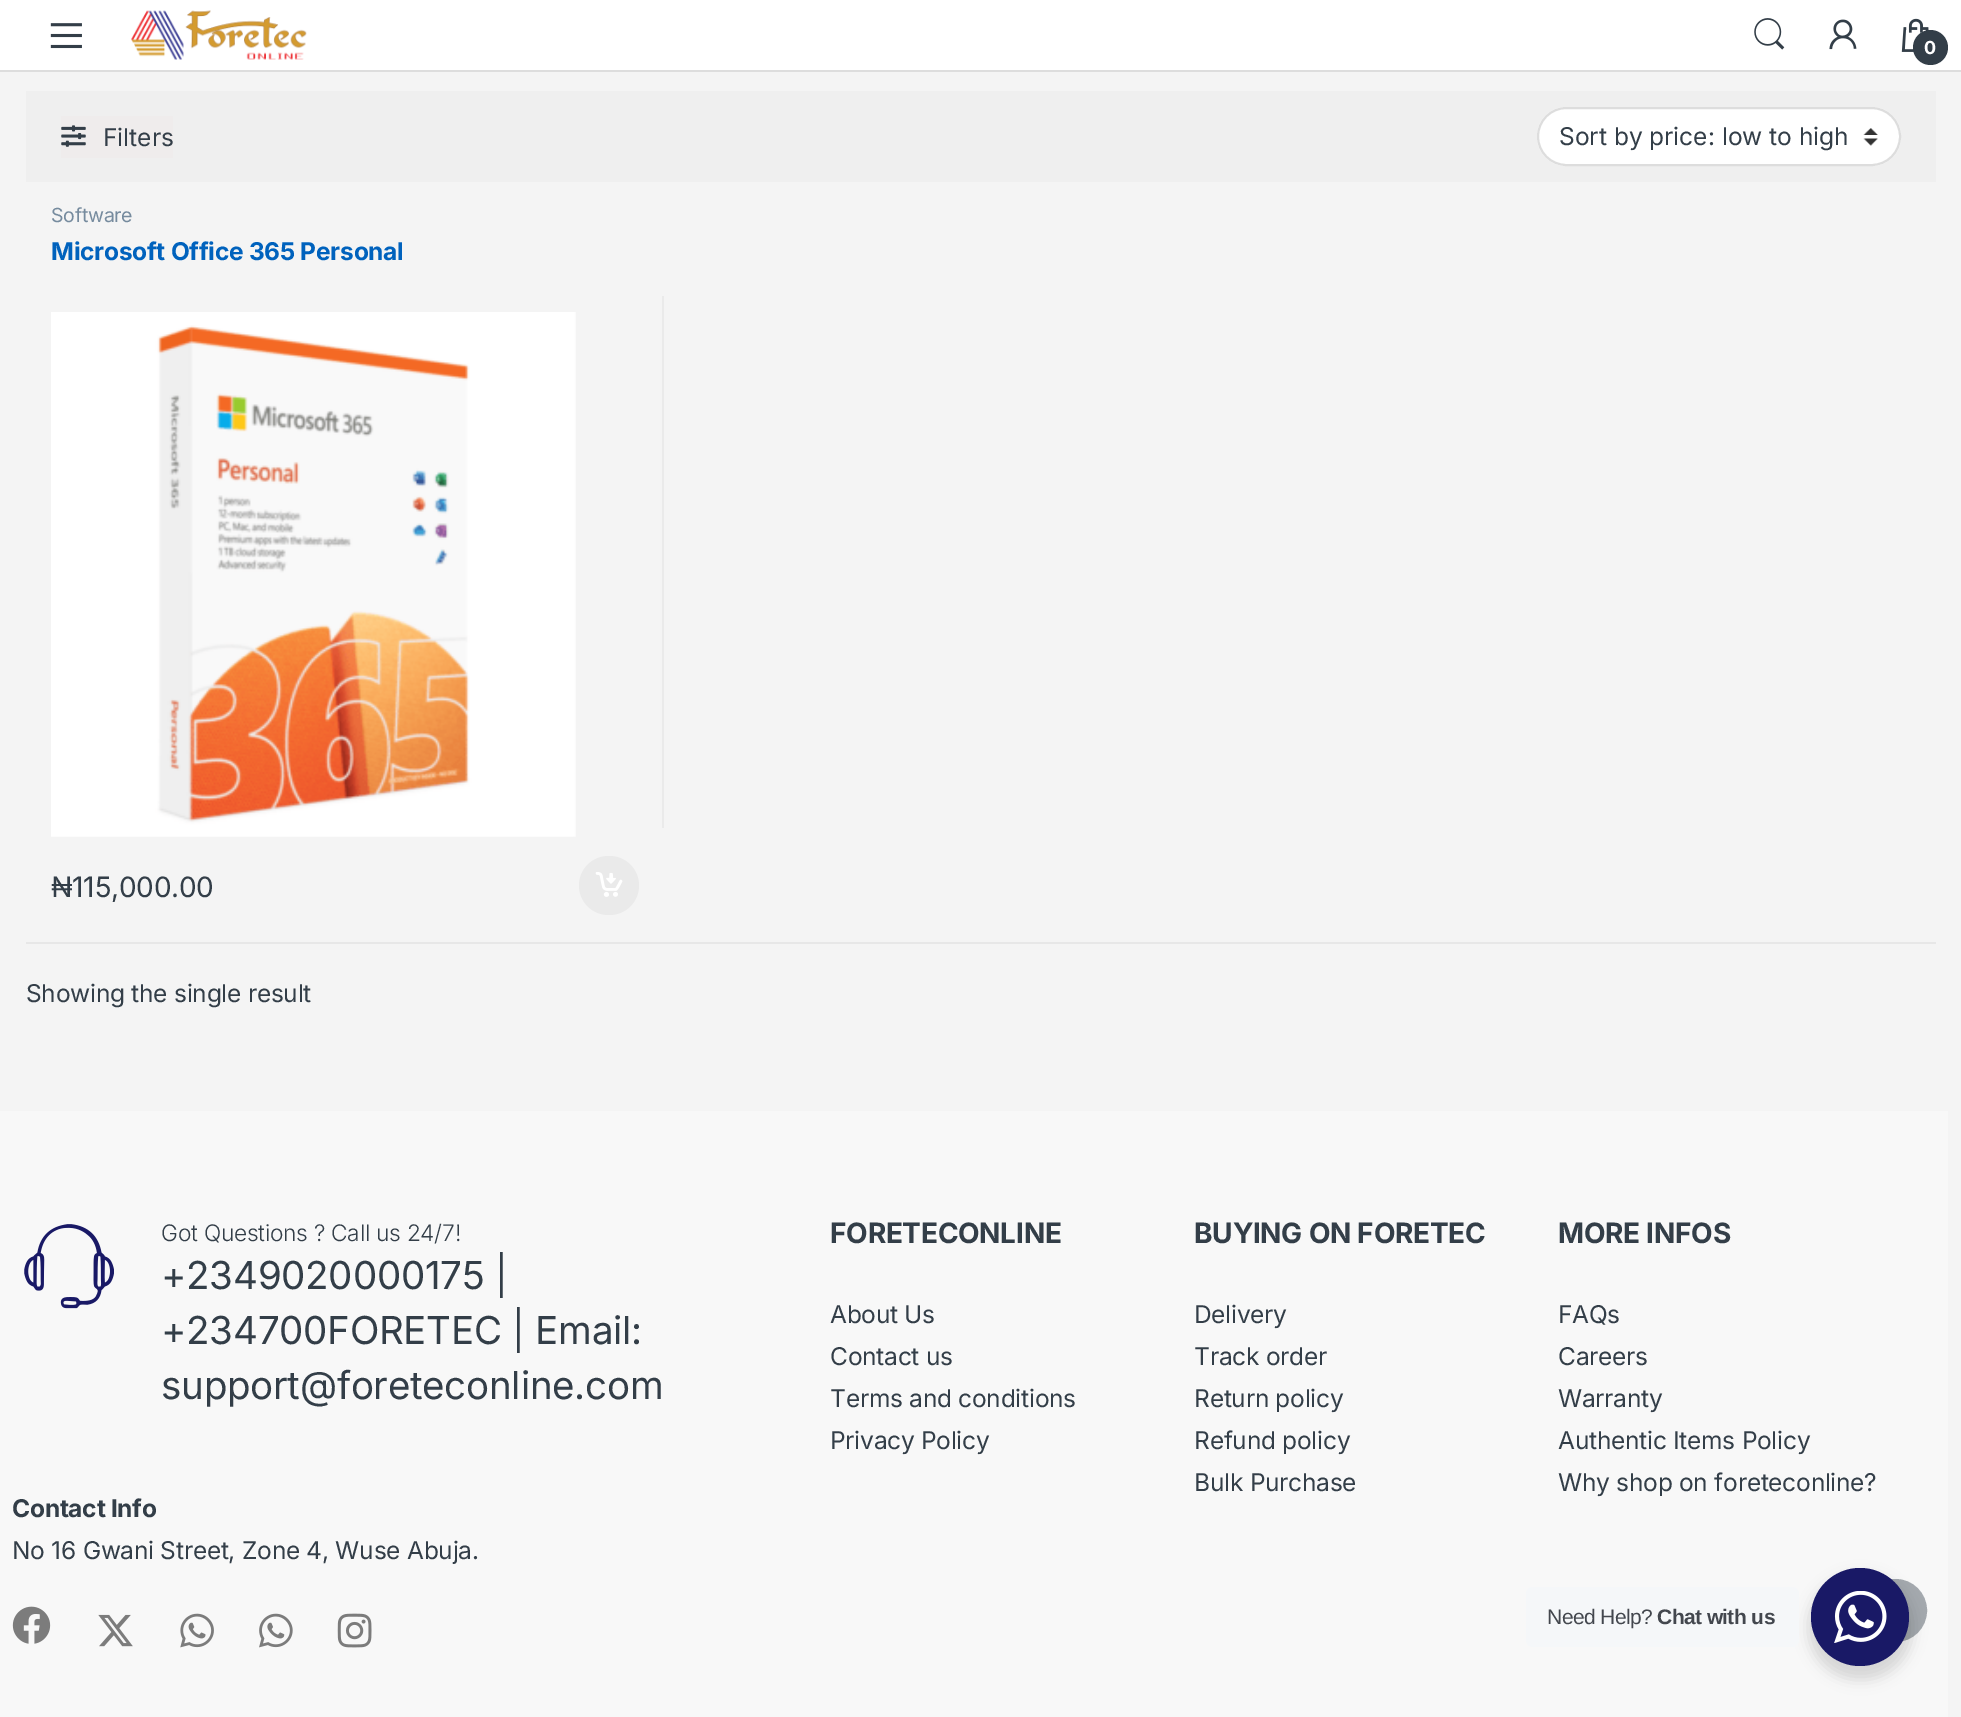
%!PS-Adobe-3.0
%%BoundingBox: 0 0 1961 1717
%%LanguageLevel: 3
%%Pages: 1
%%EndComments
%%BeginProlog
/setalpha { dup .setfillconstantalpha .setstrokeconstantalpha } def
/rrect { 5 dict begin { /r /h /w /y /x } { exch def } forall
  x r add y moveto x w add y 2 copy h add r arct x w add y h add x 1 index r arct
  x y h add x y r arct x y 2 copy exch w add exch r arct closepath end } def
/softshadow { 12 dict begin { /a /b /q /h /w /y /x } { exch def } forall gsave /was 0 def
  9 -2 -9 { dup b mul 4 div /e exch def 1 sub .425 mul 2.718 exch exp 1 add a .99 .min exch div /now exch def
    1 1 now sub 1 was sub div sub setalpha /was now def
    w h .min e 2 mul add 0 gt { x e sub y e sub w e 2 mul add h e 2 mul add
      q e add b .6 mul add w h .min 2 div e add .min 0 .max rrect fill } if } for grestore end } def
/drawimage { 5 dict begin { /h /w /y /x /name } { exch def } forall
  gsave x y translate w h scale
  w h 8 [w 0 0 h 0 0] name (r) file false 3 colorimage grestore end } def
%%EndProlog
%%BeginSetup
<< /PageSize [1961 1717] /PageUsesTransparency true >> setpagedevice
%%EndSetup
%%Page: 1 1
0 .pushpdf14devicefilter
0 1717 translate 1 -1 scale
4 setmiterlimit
0.957 setgray
0 0 1961 1717 rectfill
1 setgray
0 0 1961 70 rectfill
0.867 setgray
0 70 1961 2 rectfill
(images/1.raw) 50 23 32 26 drawimage
(images/2.raw) 131 10 176 50 drawimage
(images/3.raw) 1754 18 31 32 drawimage
(images/4.raw) 1829 19 28 31 drawimage
(images/5.raw) 1901 18 28 34 drawimage
0.2 0.243 0.282 setrgbcolor
newpath 1930.5 47.5 17.5 0 360 arc closepath fill
0.937 setgray
26 91 1910 91 rectfill
0.937 0.925 0.925 setrgbcolor
61 116 112 42 rectfill
(images/6.raw) 61 125 25 22 drawimage
1 setgray
1537 107 364 59 29.5 rrect fill
(images/7.raw) 1863 128 15 18 drawimage
0.867 setgray
2 setlinewidth
1538 108 362 57 28.5 rrect stroke
(images/8.raw) 51 312 525 525 drawimage
0.918 setgray
579 856 60 59 29.5 rrect fill
(images/9.raw) 595 872 28 25 drawimage
662 296 2 532 rectfill
0.906 setgray
26 942 1910 2 rectfill
0.973 setgray
0 1111 1948 606 rectfill
(images/10.raw) 24 1224 90 85 drawimage
(images/11.raw) 12 1606 39 38 drawimage
(images/12.raw) 98 1614 35 33 drawimage
(images/13.raw) 180 1613 34 35 drawimage
(images/14.raw) 259 1613 34 35 drawimage
(images/15.raw) 337 1613 35 35 drawimage
0.643 0.663 0.682 setrgbcolor
newpath 1895.5 1610.5 30.5 0 360 arc closepath gsave fill grestore
stroke
0 setgray
1808 1575 105 105 52.5 7 0.14 softshadow
0.961 0.969 0.976 setrgbcolor
1526 1587 273 60 7 rrect fill
0.098 0.098 0.4 setrgbcolor
newpath 1860 1617 49 0 360 arc closepath fill
(images/16.raw) 1834 1591 53 52 drawimage
/Inter-Bold [18 0 0 -18 0 0] selectfont
1 setgray
1924 54 moveto -0.25 0 (0) ashow
/Inter-Regular [24.5 0 0 -24.5 0 0] selectfont
0.2 0.243 0.282 setrgbcolor
103 146 moveto (Filters) show
1559 145 moveto (Sort by price: low to high) show
/Inter-Regular [19.5 0 0 -19.5 0 0] selectfont
0.463 0.545 0.62 setrgbcolor
51 222 moveto -0.25 0 (Software) ashow
/Inter-Bold [24.5 0 0 -24.5 0 0] selectfont
0 0.384 0.741 setrgbcolor
51 260 moveto -0.25 0 (Microsoft Office 365 Personal) ashow
/Inter-Regular [28 0 0 -28 0 0] selectfont
0.2 0.243 0.282 setrgbcolor
51 897 moveto -0.25 0 (₦115,000.00) ashow
/Inter-Regular [24.5 0 0 -24.5 0 0] selectfont
26 1002 moveto -0.25 0 (Showing the single result) ashow
/Inter-Light [22.75 0 0 -22.75 0 0] selectfont
161 1241 moveto -0.25 0 (Got Questions ? Call us 24/7!) ashow
/Inter-Regular [38.5 0 0 -38.5 0 0] selectfont
161 1289 moveto -0.25 0 (+2349020000175 |) ashow
161 1344 moveto -0.25 0 (+234700FORETEC | Email:) ashow
161 1399 moveto -0.25 0 (support@foreteconline.com) ashow
/Inter-Bold [24.5 0 0 -24.5 0 0] selectfont
12 1517 moveto -0.25 0 (Contact Info) ashow
/Inter-Regular [24.5 0 0 -24.5 0 0] selectfont
12 1559 moveto -0.25 0 (No 16 Gwani Street, Zone 4, Wuse Abuja.) ashow
/Inter-Bold [28 0 0 -28 0 0] selectfont
830 1243 moveto -0.25 0 (FORETECONLINE) ashow
/Inter-Regular [24.5 0 0 -24.5 0 0] selectfont
830 1323 moveto -0.25 0 (About Us) ashow
830 1365 moveto -0.25 0 (Contact us) ashow
830 1407 moveto -0.25 0 (Terms and conditions) ashow
830 1449 moveto -0.25 0 (Privacy Policy) ashow
/Inter-Bold [28 0 0 -28 0 0] selectfont
1194 1243 moveto -0.25 0 (BUYING ON FORETEC) ashow
/Inter-Regular [24.5 0 0 -24.5 0 0] selectfont
1194 1323 moveto -0.25 0 (Delivery) ashow
1194 1365 moveto -0.25 0 (Track order) ashow
1194 1407 moveto -0.25 0 (Return policy) ashow
1194 1449 moveto -0.25 0 (Refund policy) ashow
1194 1491 moveto -0.25 0 (Bulk Purchase) ashow
/Inter-Bold [28 0 0 -28 0 0] selectfont
1558 1243 moveto -0.25 0 (MORE INFOS) ashow
/Inter-Regular [24.5 0 0 -24.5 0 0] selectfont
1558 1323 moveto -0.25 0 (FAQs) ashow
1558 1365 moveto -0.25 0 (Careers) ashow
1558 1407 moveto -0.25 0 (Warranty) ashow
1558 1449 moveto -0.25 0 (Authentic Items Policy) ashow
1558 1491 moveto -0.25 0 (Why shop on foreteconline?) ashow
/LiberationSans-Regular [21 0 0 -21 0 0] selectfont
0.263 0.278 0.306 setrgbcolor
1547 1624 moveto -0.6 0 (Need Help?) ashow
/LiberationSans-Bold [21 0 0 -21 0 0] selectfont
1657 1624 moveto -0.6 0 (Chat with us) ashow
.poppdf14devicefilter showpage
%%EOF
